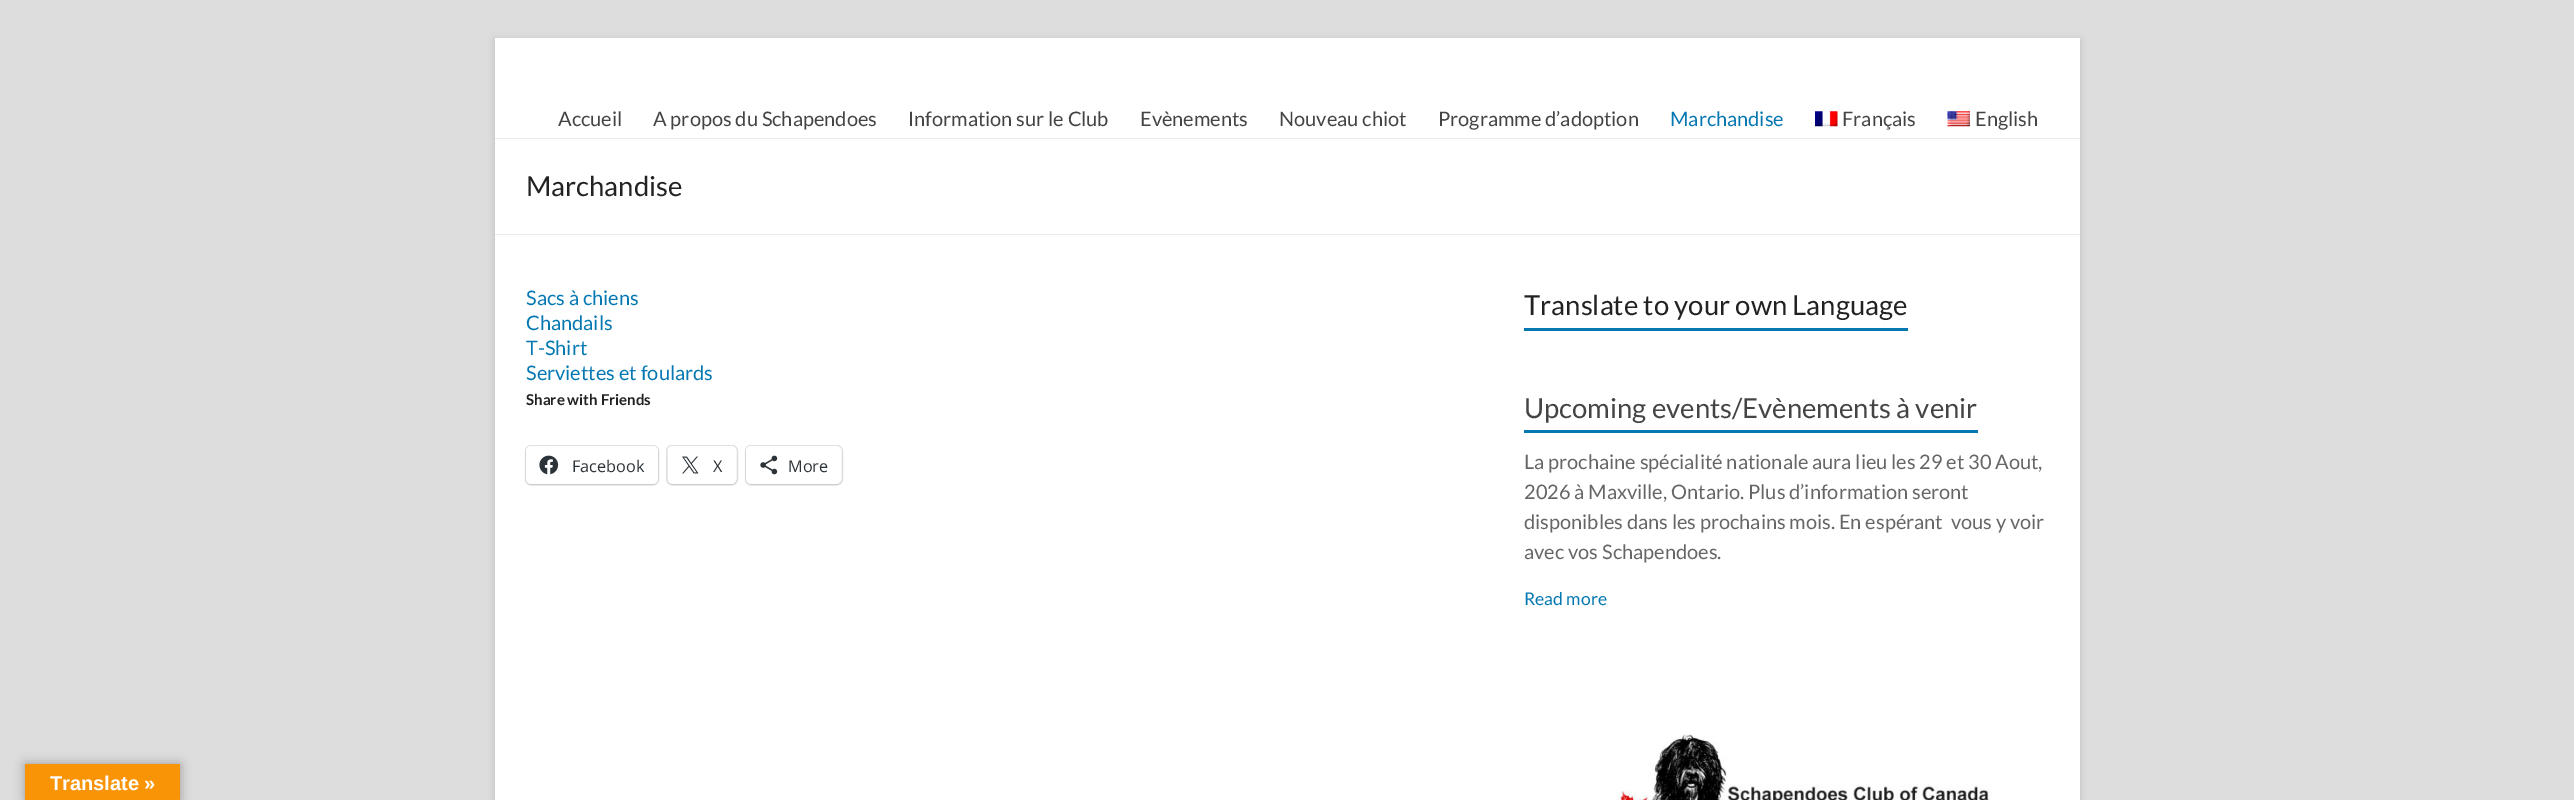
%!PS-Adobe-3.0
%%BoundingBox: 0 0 2574 800
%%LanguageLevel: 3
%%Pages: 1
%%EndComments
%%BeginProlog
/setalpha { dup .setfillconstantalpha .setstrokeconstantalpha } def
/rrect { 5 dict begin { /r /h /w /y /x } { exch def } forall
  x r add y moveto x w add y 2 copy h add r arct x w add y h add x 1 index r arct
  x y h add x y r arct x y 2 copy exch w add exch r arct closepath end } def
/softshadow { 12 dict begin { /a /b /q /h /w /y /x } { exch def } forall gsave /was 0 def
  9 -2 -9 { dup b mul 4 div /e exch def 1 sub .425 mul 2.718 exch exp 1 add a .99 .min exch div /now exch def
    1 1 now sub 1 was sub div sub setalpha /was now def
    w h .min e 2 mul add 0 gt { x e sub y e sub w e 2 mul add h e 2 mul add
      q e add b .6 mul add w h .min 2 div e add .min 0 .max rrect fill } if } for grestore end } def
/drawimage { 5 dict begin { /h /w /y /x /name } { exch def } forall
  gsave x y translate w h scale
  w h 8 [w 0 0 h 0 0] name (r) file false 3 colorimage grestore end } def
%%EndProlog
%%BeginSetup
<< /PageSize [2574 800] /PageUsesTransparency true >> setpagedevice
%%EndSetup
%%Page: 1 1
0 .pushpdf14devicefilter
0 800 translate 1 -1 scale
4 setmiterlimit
0.867 setgray
0 0 2574 800 rectfill
0.392 setgray
495 40 1585 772 0 4 0.3 softshadow
1 setgray
495 38 1585 762 rectfill
0.918 setgray
495 138 1585 1 rectfill
(images/1.raw) 1815 111 23 16 drawimage
(images/2.raw) 1947 111 23 16 drawimage
495 234 1585 1 rectfill
0.878 setgray
525.5 445.5 133 39 5.5 rrect stroke
0 setgray
526 448 132 37 5 1 0.12 softshadow
1 setgray
526 446 132 38 5 rrect fill
(images/3.raw) 539 455 20 20 drawimage
0.878 setgray
666.5 445.5 71 39 5.5 rrect stroke
0 setgray
668 448 68 37 5 1 0.12 softshadow
1 setgray
668 446 68 38 5 rrect fill
(images/4.raw) 682 456 17 18 drawimage
0.878 setgray
745.5 445.5 97 39 5.5 rrect stroke
0 setgray
746 448 95 37 5 1 0.12 softshadow
1 setgray
746 446 95 38 5 rrect fill
(images/5.raw) 760 455 18 20 drawimage
0.02 0.471 0.698 setrgbcolor
1524 328 384 3 rectfill
1524 430 454 3 rectfill
(images/6.raw) 1616 734 376 66 drawimage
0 setgray
25 764 155 36 0 5.5 0.3 softshadow
0.973 0.58 0.024 setrgbcolor
25 764 155 36 rectfill
/Lato-Regular [20 0 0 -20 0 0] selectfont
0.267 setgray
558 126 moveto (Accueil) show
653 126 moveto (A propos du Schapendoes) show
908 126 moveto (Information sur le Club) show
1140 126 moveto (Evènements) show
1279 126 moveto (Nouveau chiot) show
1438 126 moveto (Programme d’adoption) show
0.02 0.471 0.698 setrgbcolor
1670 126 moveto (Marchandise) show
0.267 setgray
1842 126 moveto (Français) show
1975 126 moveto (English) show
/Lato-Regular [27.5 0 0 -27.5 0 0] selectfont
0.133 setgray
526 196 moveto (Marchandise) show
/Lato-Regular [20 0 0 -20 0 0] selectfont
0.02 0.471 0.698 setrgbcolor
526 305 moveto (Sacs à chiens) show
526 330 moveto (Chandails) show
526 355 moveto (T-Shirt) show
526 380 moveto (Serviettes et foulards) show
/Lato-Bold [15 0 0 -15 0 0] selectfont
0.133 setgray
526 405 moveto (Share with Friends) show
/OpenSans-Regular [16.25 0 0 -16.25 0 0] selectfont
0.173 0.2 0.22 setrgbcolor
572 472 moveto (Facebook) show
713 472 moveto (X) show
788 472 moveto (More) show
/Lato-Regular [27.5 0 0 -27.5 0 0] selectfont
0.133 setgray
1524 315 moveto (Translate to your own Language) show
0.267 setgray
1524 418 moveto (Upcoming events/Evènements à venir) show
/Lato-Regular [20 0 0 -20 0 0] selectfont
0.4 setgray
1524 469 moveto (La prochaine spécialité nationale aura lieu les 29 et 30 Aout,) show
1524 499 moveto (2026 à Maxville, Ontario. Plus d’information seront) show
1524 529 moveto (disponibles dans les prochains mois. En espérant  vous y voir) show
1524 559 moveto (avec vos Schapendoes.) show
/Lato-Regular [17.5 0 0 -17.5 0 0] selectfont
0.02 0.471 0.698 setrgbcolor
1524 605 moveto (Read more) show
/LiberationSans-Bold [20 0 0 -20 0 0] selectfont
1 setgray
50 790 moveto (Translate ») show
.poppdf14devicefilter showpage
%%EOF
